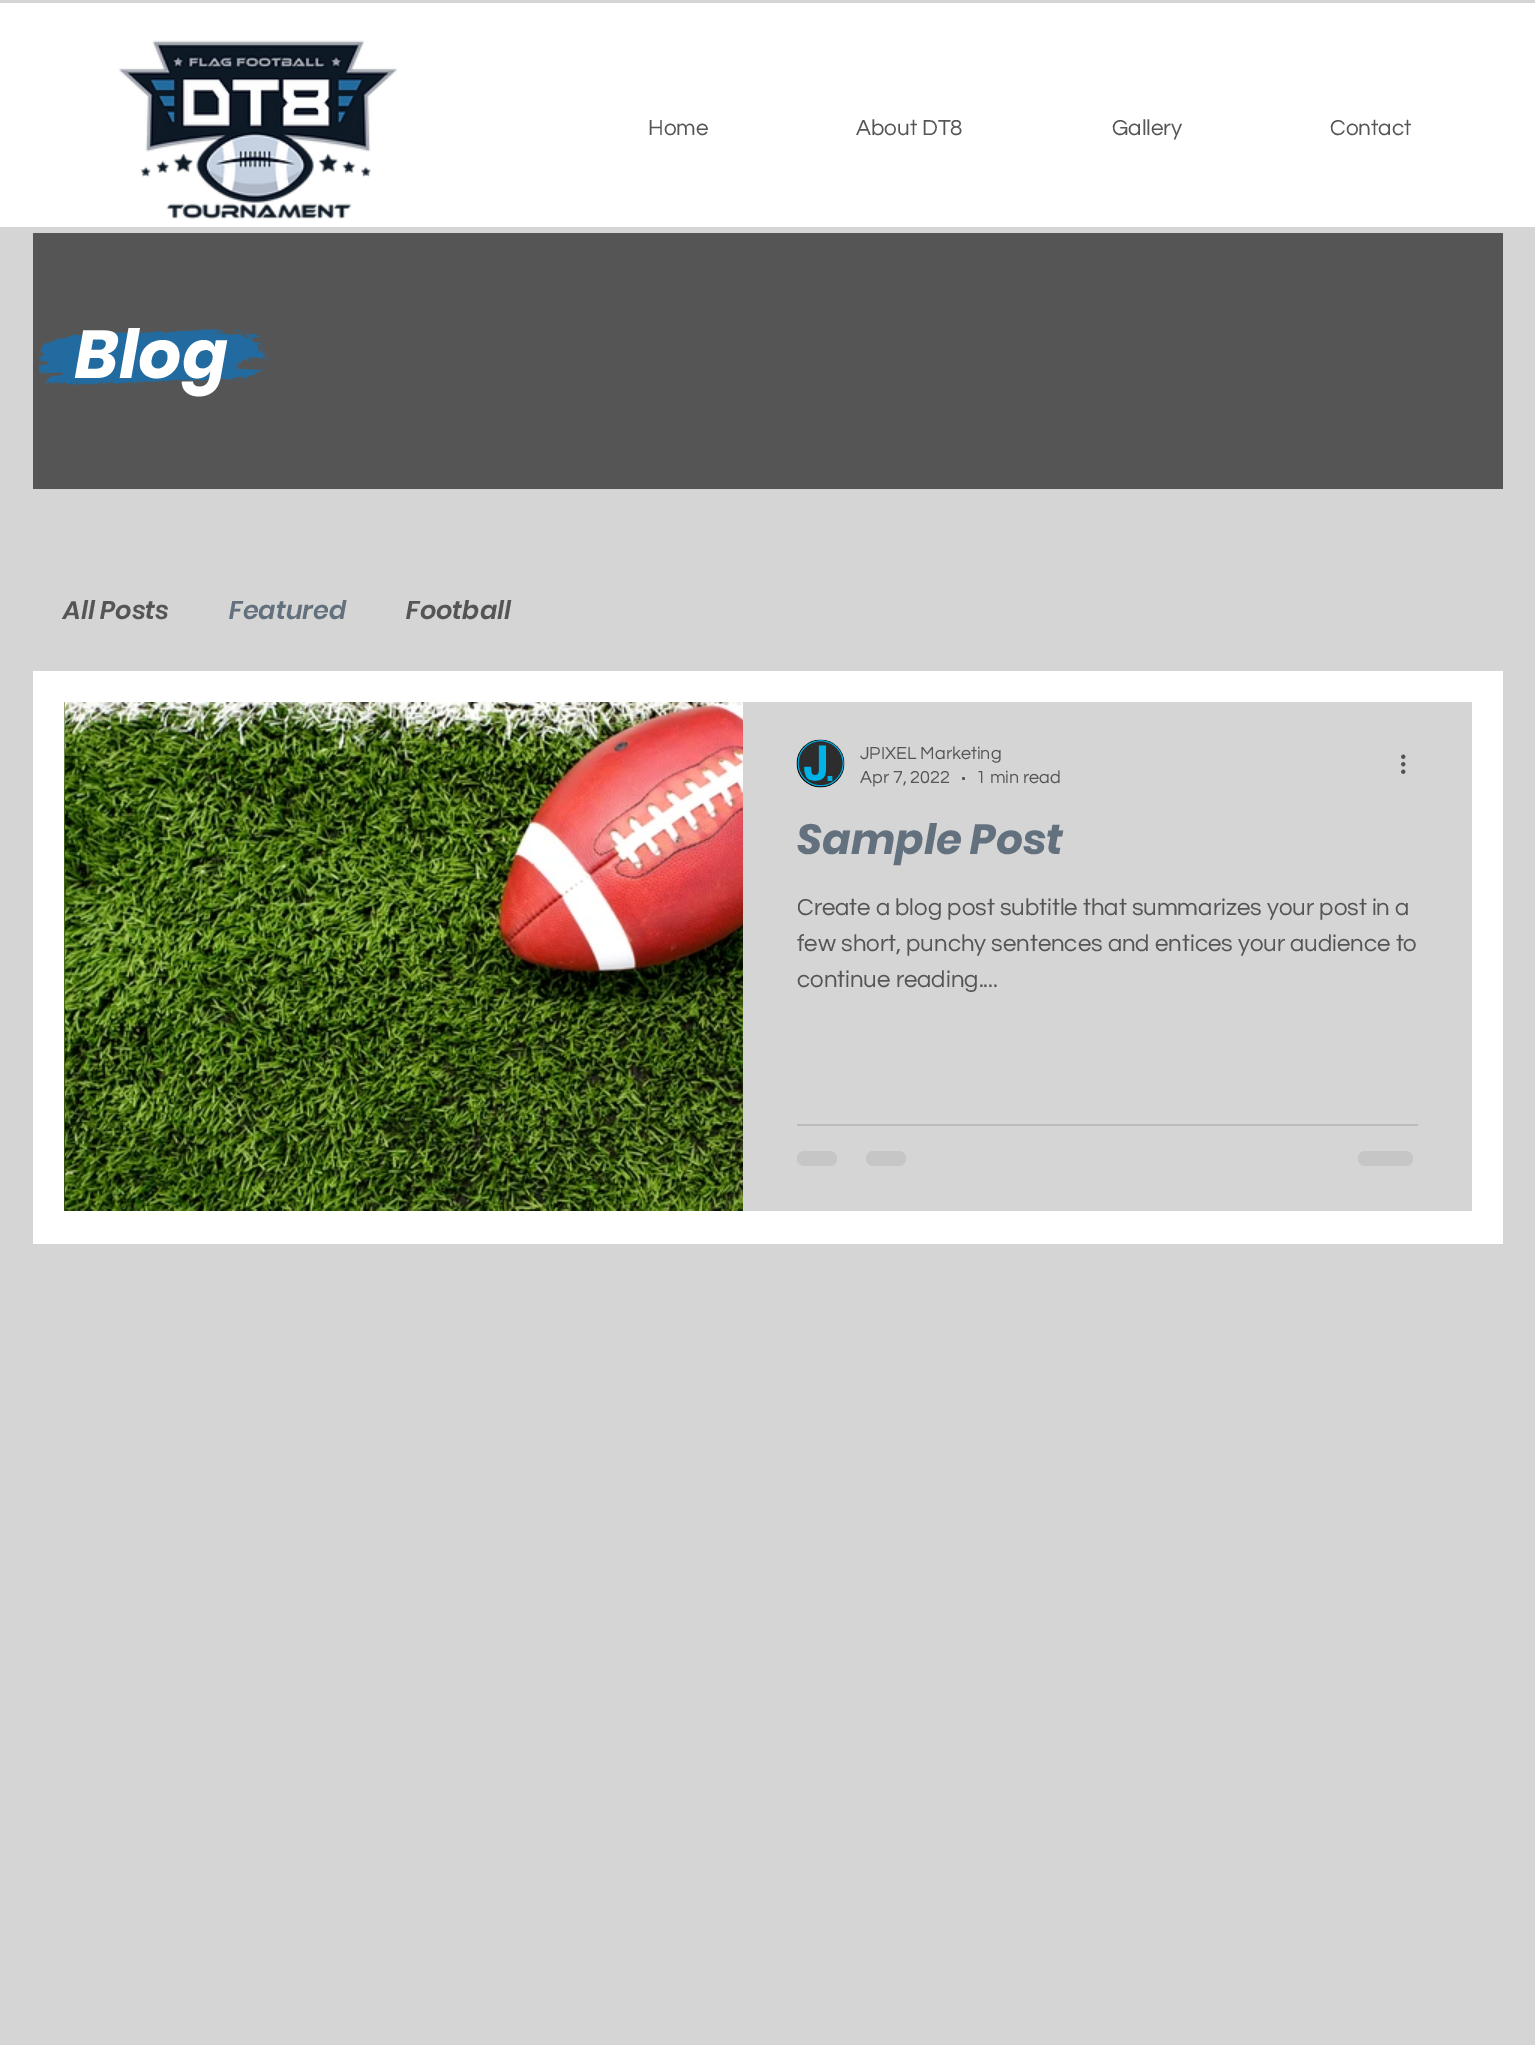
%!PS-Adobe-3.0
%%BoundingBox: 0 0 1535 2045
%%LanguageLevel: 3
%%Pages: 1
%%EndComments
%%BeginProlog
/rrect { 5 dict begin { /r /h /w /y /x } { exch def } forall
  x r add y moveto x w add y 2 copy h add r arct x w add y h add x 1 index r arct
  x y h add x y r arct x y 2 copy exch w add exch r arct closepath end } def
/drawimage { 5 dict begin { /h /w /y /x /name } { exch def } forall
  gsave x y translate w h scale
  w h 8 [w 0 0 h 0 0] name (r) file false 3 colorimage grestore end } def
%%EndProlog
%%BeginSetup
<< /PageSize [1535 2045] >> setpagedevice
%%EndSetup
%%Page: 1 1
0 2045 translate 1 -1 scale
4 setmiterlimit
0.835 setgray
0 0 1535 2045 rectfill
1 setgray
0 3 1535 224 rectfill
(images/1.raw) 118 40 280 180 drawimage
0.333 setgray
33 233 1470 256 rectfill
(images/2.raw) 39 328 231 61 drawimage
1 setgray
33 671 1470 573 rectfill
(images/3.raw) 64 702 1 509 drawimage
(images/4.raw) 65 702 678 509 drawimage
0.835 setgray
743 702 729 509 rectfill
(images/5.raw) 796 739 49 49 drawimage
0.333 setgray
newpath 963.5 778.5 1.5 0 360 arc closepath fill
(images/6.raw) 1401 754 5 20 drawimage
0.733 setgray
797 1124 621 2 rectfill
0.776 setgray
797 1151 40 15 7.5 rrect fill
866 1151 40 15 7.5 rrect fill
1358 1151 55 15 7.5 rrect fill
/Questrial-Regular [22.5 0 0 -22.5 0 0] selectfont
0.333 setgray
648 135 moveto (Home) show
856 135 moveto (About DT8) show
1112 135 moveto (Gallery) show
1330 135 moveto (Contact) show
/Poppins-BoldItalic [67.5 0 0 -67.5 0 0] selectfont
1 setgray
75 378 moveto (Blog) show
/Poppins-SemiBoldItalic [25.5 0 0 -25.5 0 0] selectfont
0.333 setgray
63 619 moveto (All Posts) show
0.388 0.439 0.49 setrgbcolor
229 619 moveto (Featured) show
0.333 setgray
406 619 moveto (Football) show
/Questrial-Regular [18 0 0 -18 0 0] selectfont
860 759 moveto (JPIXEL Marketing) show
860 783 moveto (Apr 7, 2022) show
976 783 moveto (1 min read) show
/Poppins-BoldItalic [42 0 0 -42 0 0] selectfont
0.388 0.439 0.49 setrgbcolor
797 854 moveto (Sample Post) show
/Questrial-Regular [24 0 0 -24 0 0] selectfont
0.333 setgray
797 915 moveto (Create a blog post subtitle that summarizes your post in a) show
797 951 moveto (few short, punchy sentences and entices your audience to) show
797 987 moveto (continue reading....) show
showpage
%%EOF
